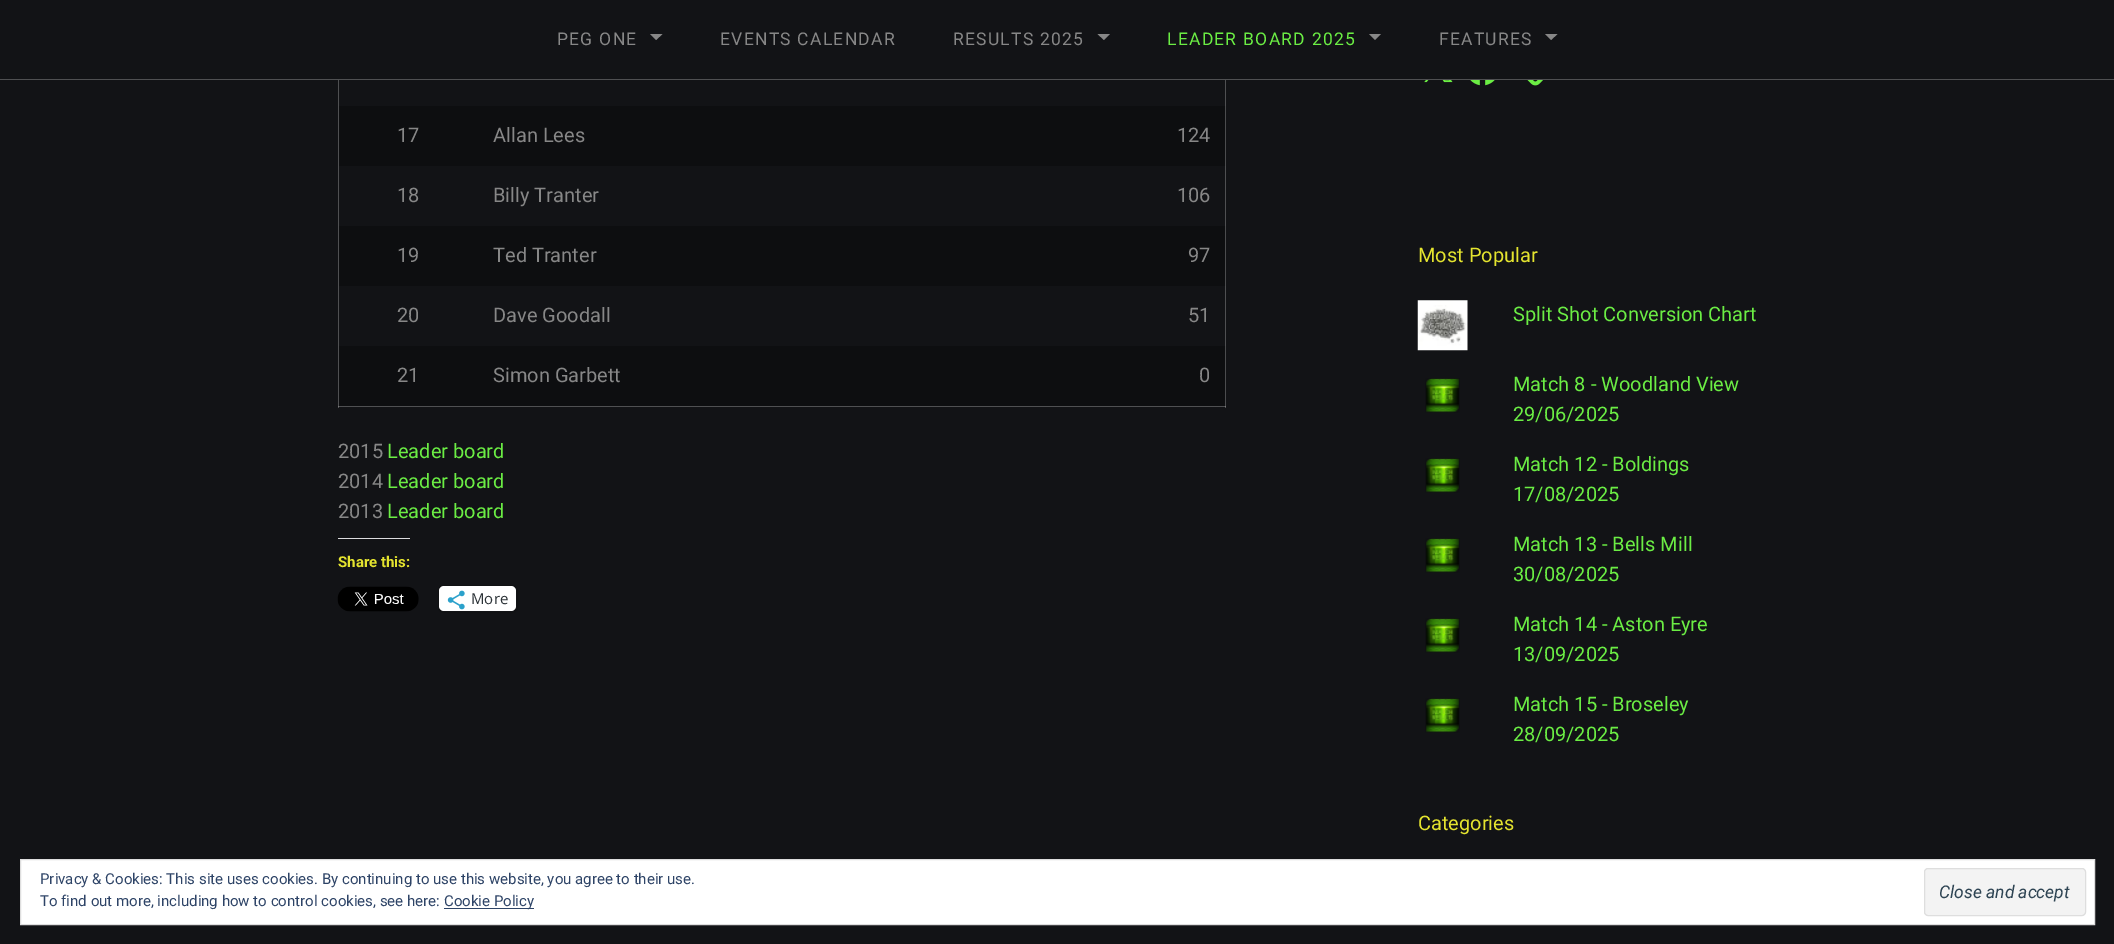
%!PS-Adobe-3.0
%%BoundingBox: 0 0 2114 944
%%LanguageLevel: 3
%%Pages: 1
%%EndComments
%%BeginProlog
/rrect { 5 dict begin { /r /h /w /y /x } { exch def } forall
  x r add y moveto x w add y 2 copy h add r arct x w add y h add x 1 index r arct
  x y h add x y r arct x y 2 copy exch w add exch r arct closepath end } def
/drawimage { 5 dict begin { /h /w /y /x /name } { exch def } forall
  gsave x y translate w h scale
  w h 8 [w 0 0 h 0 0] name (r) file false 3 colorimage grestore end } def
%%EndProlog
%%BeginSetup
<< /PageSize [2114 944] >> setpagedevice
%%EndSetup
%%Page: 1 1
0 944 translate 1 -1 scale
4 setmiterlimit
0.071 0.075 0.086 setrgbcolor
0 0 2114 944 rectfill
0.31 0.314 0.322 setrgbcolor
338 80 1 328 rectfill
338 406 888 1 rectfill
0.478 0.478 0.486 setrgbcolor
338 406 1 1 rectfill
0.31 0.314 0.322 setrgbcolor
1225 80 1 328 rectfill
0.478 0.478 0.486 setrgbcolor
1225 406 1 1 rectfill
0.31 0.314 0.322 setrgbcolor
0 79 2114 1 rectfill
0.529 setgray
newpath 650 34 moveto 662.5 34 lineto 656 40 lineto closepath fill
newpath 1097.5 34 moveto 1110 34 lineto 1104 40 lineto closepath fill
newpath 1369 34 moveto 1381 34 lineto 1375 40 lineto closepath fill
newpath 1545 34 moveto 1557.5 34 lineto 1551 40 lineto closepath fill
0.051 0.055 0.063 setrgbcolor
339 106 886 60 rectfill
0.294 0.298 0.306 setrgbcolor
1225 106 1 60 rectfill
0.051 0.055 0.063 setrgbcolor
339 226 886 60 rectfill
0.294 0.298 0.306 setrgbcolor
1225 226 1 60 rectfill
0.051 0.055 0.063 setrgbcolor
339 346 886 60 rectfill
0.294 0.298 0.306 setrgbcolor
1225 346 1 60 rectfill
0.863 0.863 0.871 setrgbcolor
338 538 72 1 rectfill
(images/1.raw) 337 586 82 26 drawimage
0.063 0.067 0.075 setrgbcolor
438.5 585.5 79 27 5.5 rrect stroke
1 setgray
439 586 77 25 5 rrect fill
(images/2.raw) 447 590 18 20 drawimage
(images/3.raw) 1424 80 29 3 drawimage
(images/4.raw) 1470 80 25 6 drawimage
(images/5.raw) 1527 80 16 6 drawimage
(images/6.raw) 1417 300 51 51 drawimage
(images/7.raw) 1425 378 35 35 drawimage
(images/7.raw) 1425 458 35 35 drawimage
(images/7.raw) 1425 538 35 35 drawimage
(images/7.raw) 1425 618 35 35 drawimage
(images/7.raw) 1425 698 35 35 drawimage
newpath 20.5 859.5 moveto 2094.5 859.5 lineto 2094.5 924.5 lineto 20.5 924.5 lineto closepath gsave fill grestore
0.871 setgray
stroke
0.18 0.267 0.404 setrgbcolor
444 908 90 1 rectfill
0.953 setgray
1924.5 868.5 161 47 3.5 rrect gsave fill grestore
0.871 setgray
stroke
/Roboto-Regular [17.5 0 0 -17.5 0 0] selectfont
0.529 setgray
557 45 moveto 1.25 0 (PEG ONE) ashow
720 45 moveto 1.25 0 (EVENTS CALENDAR) ashow
953 45 moveto 1.25 0 (RESULTS 2025) ashow
0.42 0.929 0.267 setrgbcolor
1167 45 moveto 1.25 0 (LEADER BOARD 2025) ashow
0.529 setgray
1439 45 moveto 1.25 0 (FEATURES) ashow
/Roboto-Regular [20 0 0 -20 0 0] selectfont
397 142 moveto (17) show
493 142 moveto (Allan Lees) show
1177 142 moveto (124) show
397 202 moveto (18) show
493 202 moveto (Billy Tranter) show
1177 202 moveto (106) show
397 262 moveto (19) show
493 262 moveto (Ted Tranter) show
1188 262 moveto (97) show
397 322 moveto (20) show
493 322 moveto (Dave Goodall) show
1188 322 moveto (51) show
397 382 moveto (21) show
493 382 moveto (Simon Garbett) show
1199 382 moveto (0) show
338 458 moveto (2015) show
0.42 0.929 0.267 setrgbcolor
387 458 moveto (Leader board) show
0.529 setgray
338 488 moveto (2014) show
0.42 0.929 0.267 setrgbcolor
387 488 moveto (Leader board) show
0.529 setgray
338 518 moveto (2013) show
0.42 0.929 0.267 setrgbcolor
387 518 moveto (Leader board) show
/Roboto-Bold [15 0 0 -15 0 0] selectfont
0.894 0.894 0.184 setrgbcolor
338 567 moveto (Share this:) show
/OpenSans-Regular [15 0 0 -15 0 0] selectfont
0.173 0.2 0.22 setrgbcolor
471 604 moveto (More) show
/Roboto-Regular [20 0 0 -20 0 0] selectfont
0.894 0.894 0.184 setrgbcolor
1418 262 moveto (Most Popular) show
0.42 0.929 0.267 setrgbcolor
1513 321 moveto (Split Shot Conversion Chart) show
1513 391 moveto (Match 8 - Woodland View) show
1513 421 moveto (29/06/2025) show
1513 471 moveto (Match 12 - Boldings) show
1513 501 moveto (17/08/2025) show
1513 551 moveto (Match 13 - Bells Mill) show
1513 581 moveto (30/08/2025) show
1513 631 moveto (Match 14 - Aston Eyre) show
1513 661 moveto (13/09/2025) show
1513 711 moveto (Match 15 - Broseley) show
1513 741 moveto (28/09/2025) show
0.894 0.894 0.184 setrgbcolor
1418 830 moveto (Categories) show
/Roboto-Regular [15 0 0 -15 0 0] selectfont
0.18 0.267 0.404 setrgbcolor
40 884 moveto (Privacy & Cookies: This site uses cookies. By continuing to use this website, you agree to their use.) show
40 906 moveto (To find out more, including how to control cookies, see here:) show
444 906 moveto (Cookie Policy) show
/Roboto-Italic [17.5 0 0 -17.5 0 0] selectfont
0.18 0.267 0.325 setrgbcolor
1939 898 moveto (Close and accept) show
showpage
%%EOF
